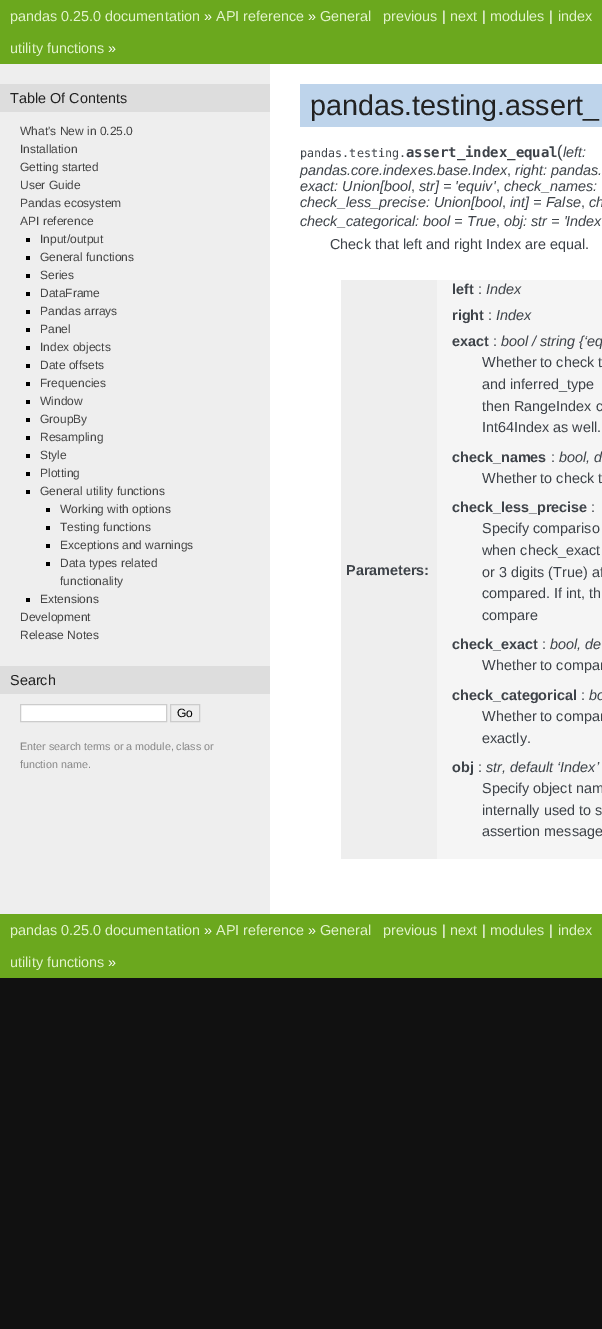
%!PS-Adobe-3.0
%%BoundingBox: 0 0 602 1329
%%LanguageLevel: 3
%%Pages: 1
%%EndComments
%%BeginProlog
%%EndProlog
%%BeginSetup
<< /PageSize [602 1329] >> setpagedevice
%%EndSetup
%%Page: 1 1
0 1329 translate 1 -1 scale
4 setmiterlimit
0.067 setgray
0 0 602 1329 rectfill
0.42 0.659 0.118 setrgbcolor
0 0 602 64 rectfill
0.933 setgray
0 64 270 850 rectfill
0.867 setgray
0 84 270 28 rectfill
0 setgray
26 238 4 4 rectfill
26 256 4 4 rectfill
26 274 4 4 rectfill
26 292 4 4 rectfill
26 310 4 4 rectfill
26 328 4 4 rectfill
26 346 4 4 rectfill
26 364 4 4 rectfill
26 382 4 4 rectfill
26 400 4 4 rectfill
26 418 4 4 rectfill
26 436 4 4 rectfill
26 454 4 4 rectfill
26 472 4 4 rectfill
26 490 4 4 rectfill
46 508 4 4 rectfill
46 526 4 4 rectfill
46 544 4 4 rectfill
46 562 4 4 rectfill
26 598 4 4 rectfill
0.867 setgray
0 666 270 28 rectfill
1 setgray
newpath 20.5 704.5 moveto 166.5 704.5 lineto 166.5 721.5 lineto 20.5 721.5 lineto closepath gsave fill grestore
0.8 setgray
stroke
170.5 704.5 29 17 rectstroke
1 setgray
270 64 332 850 rectfill
0.745 0.831 0.922 setrgbcolor
300 84 302 43 rectfill
0.961 setgray
437 280 165 579 rectfill
0.933 setgray
341 280 96 579 rectfill
0.42 0.659 0.118 setrgbcolor
0 914 602 64 rectfill
/LiberationSans-Regular [14.4 0 0 -14.4 0 0] selectfont
0.886 0.953 0.8 setrgbcolor
10 21 moveto (pandas 0.25.0 documentation) show
1 setgray
204 21 moveto (») show
0.886 0.953 0.8 setrgbcolor
216 21 moveto (API reference) show
1 setgray
308 21 moveto (») show
0.886 0.953 0.8 setrgbcolor
320 21 moveto (General) show
383 21 moveto (previous) show
1 setgray
442 21 moveto (|) show
0.886 0.953 0.8 setrgbcolor
450 21 moveto (next) show
1 setgray
482 21 moveto (|) show
0.886 0.953 0.8 setrgbcolor
490 21 moveto (modules) show
1 setgray
549 21 moveto (|) show
0.886 0.953 0.8 setrgbcolor
558 21 moveto (index) show
10 53 moveto (utility functions) show
1 setgray
108 53 moveto (») show
0.133 setgray
10 103 moveto (Table Of Contents) show
/LiberationSans-Regular [12 0 0 -12 0 0] selectfont
0.267 setgray
20 135 moveto (What's New in 0.25.0) show
20 153 moveto (Installation) show
20 171 moveto (Getting started) show
20 189 moveto (User Guide) show
20 207 moveto (Pandas ecosystem) show
20 225 moveto (API reference) show
40 243 moveto (Input/output) show
40 261 moveto (General functions) show
40 279 moveto (Series) show
40 297 moveto (DataFrame) show
40 315 moveto (Pandas arrays) show
40 333 moveto (Panel) show
40 351 moveto (Index objects) show
40 369 moveto (Date offsets) show
40 387 moveto (Frequencies) show
40 405 moveto (Window) show
40 423 moveto (GroupBy) show
40 441 moveto (Resampling) show
40 459 moveto (Style) show
40 477 moveto (Plotting) show
40 495 moveto (General utility functions) show
60 513 moveto (Working with options) show
60 531 moveto (Testing functions) show
60 549 moveto (Exceptions and warnings) show
60 567 moveto (Data types related) show
60 585 moveto (functionality) show
40 603 moveto (Extensions) show
20 621 moveto (Development) show
20 639 moveto (Release Notes) show
/LiberationSans-Regular [14.4 0 0 -14.4 0 0] selectfont
0.133 setgray
10 685 moveto (Search) show
/LiberationSans-Regular [12 0 0 -12 0 0] selectfont
0 setgray
177 717 moveto (Go) show
/LiberationSans-Regular [10.75 0 0 -10.75 0 0] selectfont
0.533 setgray
20 750 moveto (Enter search terms or a module, class or) show
20 768 moveto (function name.) show
/LiberationSans-Regular [28.75 0 0 -28.75 0 0] selectfont
0.133 setgray
310 115 moveto (pandas.testing.assert_) show
/DejaVuSansMono-Regular [11.75 0 0 -11.75 0 0] selectfont
0.243 0.263 0.286 setrgbcolor
300 157 moveto (pandas.testing.) show
/DejaVuSansMono-Bold [14 0 0 -14 0 0] selectfont
406 157 moveto (assert_index_equal) show
/LiberationSans-Regular [17 0 0 -17 0 0] selectfont
557 157 moveto (\() show
/LiberationSans-Italic [14.4 0 0 -14.4 0 0] selectfont
563 157 moveto (left:) show
300 175 moveto (pandas.core.indexes.base.Index) show
/LiberationSans-Regular [14.4 0 0 -14.4 0 0] selectfont
507 175 moveto (,) show
/LiberationSans-Italic [14.4 0 0 -14.4 0 0] selectfont
515 175 moveto (right: pandas.) show
300 191 moveto (exact: Union[bool) show
/LiberationSans-Regular [14.4 0 0 -14.4 0 0] selectfont
411 191 moveto (,) show
/LiberationSans-Italic [14.4 0 0 -14.4 0 0] selectfont
419 191 moveto (str] = 'equiv') show
/LiberationSans-Regular [14.4 0 0 -14.4 0 0] selectfont
496 191 moveto (,) show
/LiberationSans-Italic [14.4 0 0 -14.4 0 0] selectfont
504 191 moveto (check_names:) show
300 207 moveto (check_less_precise: Union[bool) show
/LiberationSans-Regular [14.4 0 0 -14.4 0 0] selectfont
502 207 moveto (,) show
/LiberationSans-Italic [14.4 0 0 -14.4 0 0] selectfont
510 207 moveto (int] = False) show
/LiberationSans-Regular [14.4 0 0 -14.4 0 0] selectfont
581 207 moveto (,) show
/LiberationSans-Italic [14.4 0 0 -14.4 0 0] selectfont
589 207 moveto (ch) show
300 226 moveto (check_categorical: bool = True) show
/LiberationSans-Regular [14.4 0 0 -14.4 0 0] selectfont
496 226 moveto (,) show
/LiberationSans-Italic [14.4 0 0 -14.4 0 0] selectfont
504 226 moveto (obj: str = 'Index) show
/LiberationSans-Regular [14.4 0 0 -14.4 0 0] selectfont
330 249 moveto (Check that left and right Index are equal.) show
/LiberationSans-Bold [14.4 0 0 -14.4 0 0] selectfont
346 575 moveto (Parameters:) show
452 294 moveto (left) show
/LiberationSans-Regular [14.4 0 0 -14.4 0 0] selectfont
478 294 moveto (:) show
/LiberationSans-Italic [14.4 0 0 -14.4 0 0] selectfont
486 294 moveto (Index) show
/LiberationSans-Bold [14.4 0 0 -14.4 0 0] selectfont
452 320 moveto (right) show
/LiberationSans-Regular [14.4 0 0 -14.4 0 0] selectfont
488 320 moveto (:) show
/LiberationSans-Italic [14.4 0 0 -14.4 0 0] selectfont
496 320 moveto (Index) show
/LiberationSans-Bold [14.4 0 0 -14.4 0 0] selectfont
452 346 moveto (exact) show
/LiberationSans-Regular [14.4 0 0 -14.4 0 0] selectfont
493 346 moveto (:) show
/LiberationSans-Italic [14.4 0 0 -14.4 0 0] selectfont
501 346 moveto (bool / string {‘eq) show
/LiberationSans-Regular [14.4 0 0 -14.4 0 0] selectfont
482 367 moveto (Whether to check t) show
482 389 moveto (and inferred_type) show
482 411 moveto (then RangeIndex c) show
482 432 moveto (Int64Index as well.) show
/LiberationSans-Bold [14.4 0 0 -14.4 0 0] selectfont
452 462 moveto (check_names) show
/LiberationSans-Regular [14.4 0 0 -14.4 0 0] selectfont
551 462 moveto (:) show
/LiberationSans-Italic [14.4 0 0 -14.4 0 0] selectfont
559 462 moveto (bool, d) show
/LiberationSans-Regular [14.4 0 0 -14.4 0 0] selectfont
482 483 moveto (Whether to check t) show
/LiberationSans-Bold [14.4 0 0 -14.4 0 0] selectfont
452 512 moveto (check_less_precise) show
/LiberationSans-Regular [14.4 0 0 -14.4 0 0] selectfont
591 512 moveto (:) show
482 533 moveto (Specify compariso) show
482 555 moveto (when check_exact) show
482 577 moveto (or 3 digits \(True\) af) show
482 598 moveto (compared. If int, th) show
482 620 moveto (compare) show
/LiberationSans-Bold [14.4 0 0 -14.4 0 0] selectfont
452 649 moveto (check_exact) show
/LiberationSans-Regular [14.4 0 0 -14.4 0 0] selectfont
542 649 moveto (:) show
/LiberationSans-Italic [14.4 0 0 -14.4 0 0] selectfont
550 649 moveto (bool, de) show
/LiberationSans-Regular [14.4 0 0 -14.4 0 0] selectfont
482 670 moveto (Whether to compar) show
/LiberationSans-Bold [14.4 0 0 -14.4 0 0] selectfont
452 700 moveto (check_categorical) show
/LiberationSans-Regular [14.4 0 0 -14.4 0 0] selectfont
581 700 moveto (:) show
/LiberationSans-Italic [14.4 0 0 -14.4 0 0] selectfont
589 700 moveto (bo) show
/LiberationSans-Regular [14.4 0 0 -14.4 0 0] selectfont
482 721 moveto (Whether to compar) show
482 743 moveto (exactly.) show
/LiberationSans-Bold [14.4 0 0 -14.4 0 0] selectfont
452 772 moveto (obj) show
/LiberationSans-Regular [14.4 0 0 -14.4 0 0] selectfont
478 772 moveto (:) show
/LiberationSans-Italic [14.4 0 0 -14.4 0 0] selectfont
486 772 moveto (str, default ‘Index’) show
/LiberationSans-Regular [14.4 0 0 -14.4 0 0] selectfont
482 793 moveto (Specify object nam) show
482 815 moveto (internally used to s) show
482 836 moveto (assertion message) show
0.886 0.953 0.8 setrgbcolor
10 935 moveto (pandas 0.25.0 documentation) show
1 setgray
204 935 moveto (») show
0.886 0.953 0.8 setrgbcolor
216 935 moveto (API reference) show
1 setgray
308 935 moveto (») show
0.886 0.953 0.8 setrgbcolor
320 935 moveto (General) show
383 935 moveto (previous) show
1 setgray
442 935 moveto (|) show
0.886 0.953 0.8 setrgbcolor
450 935 moveto (next) show
1 setgray
482 935 moveto (|) show
0.886 0.953 0.8 setrgbcolor
490 935 moveto (modules) show
1 setgray
549 935 moveto (|) show
0.886 0.953 0.8 setrgbcolor
558 935 moveto (index) show
10 967 moveto (utility functions) show
1 setgray
108 967 moveto (») show
showpage
%%EOF
